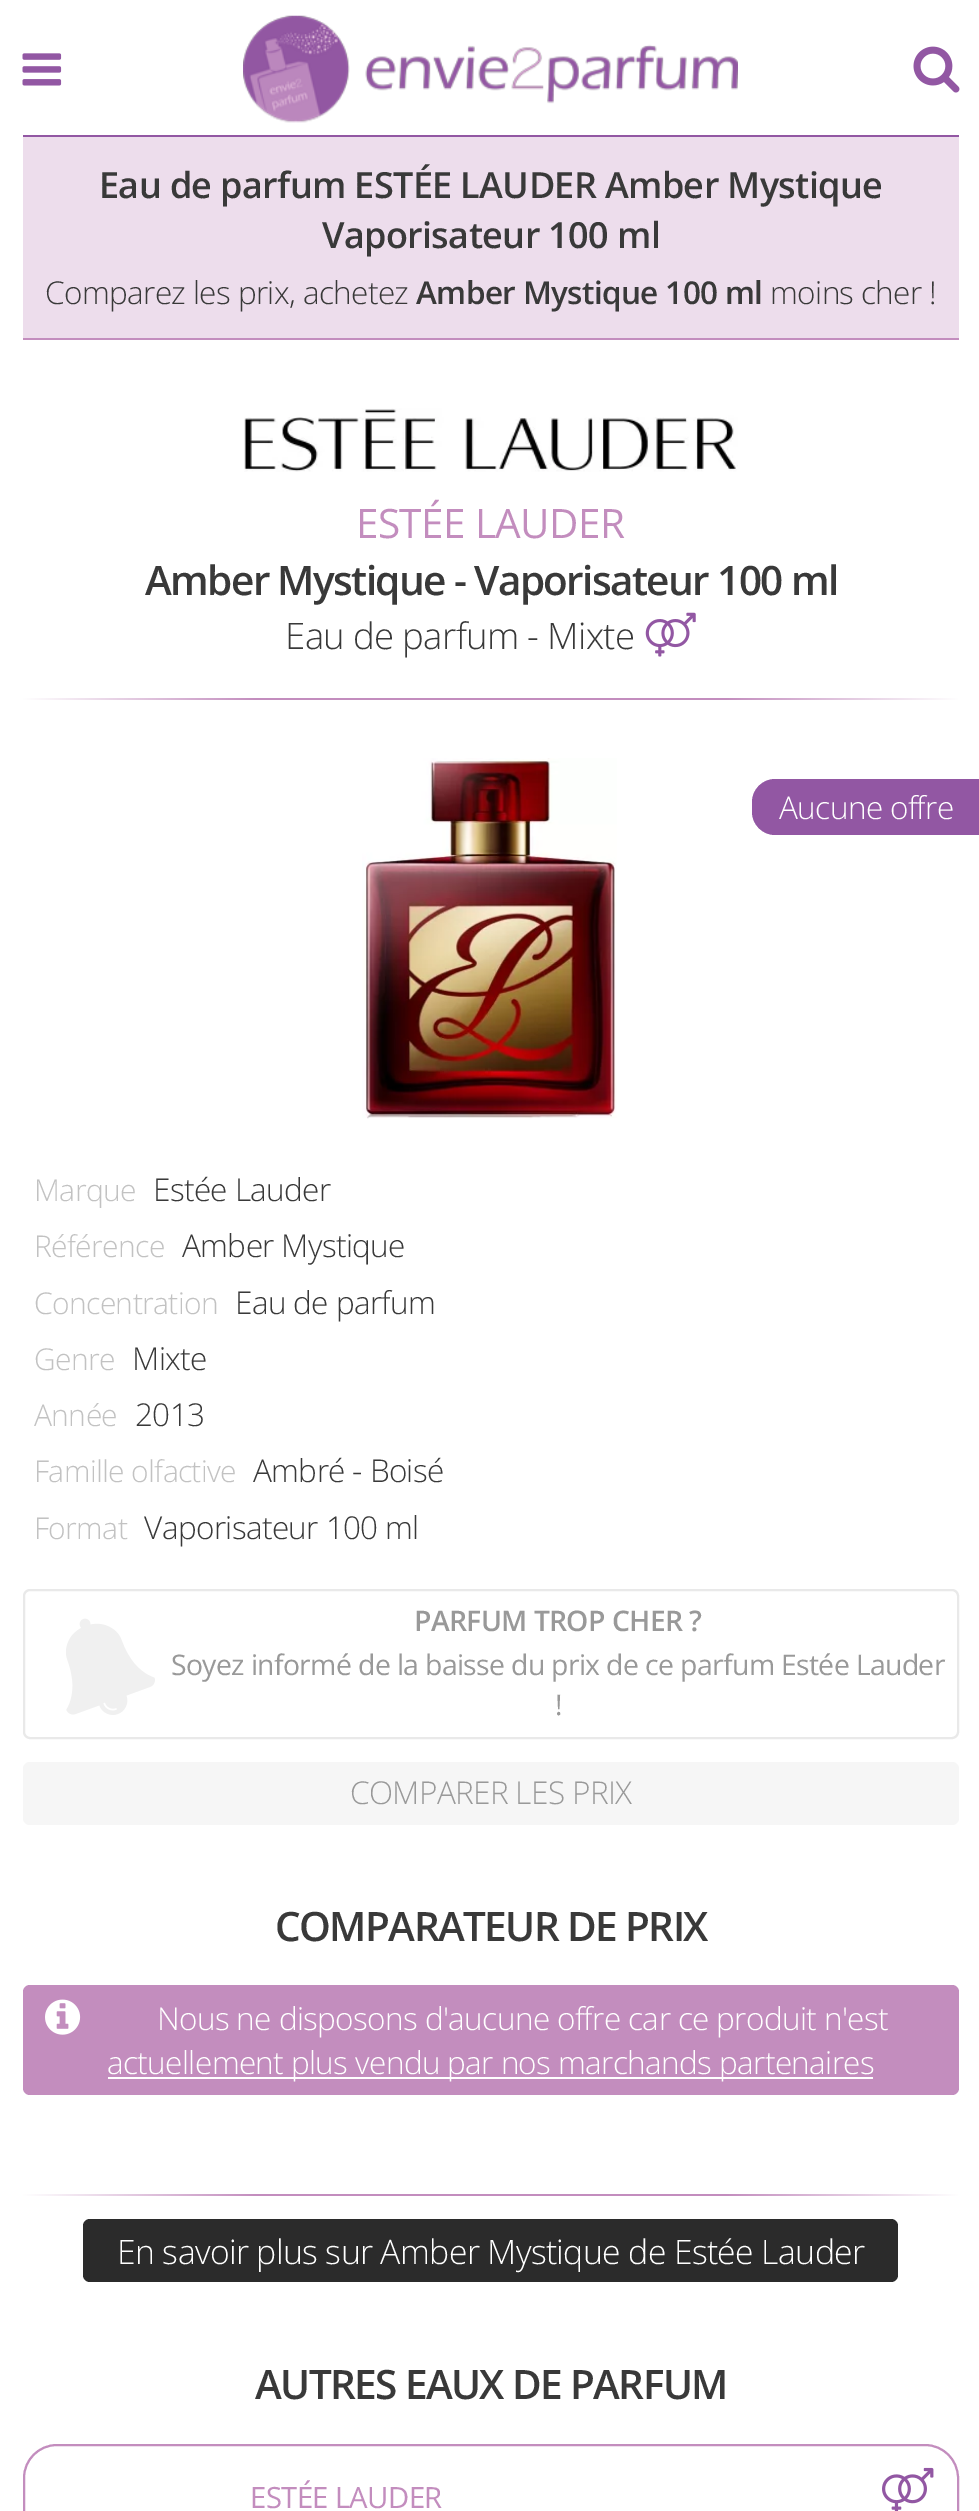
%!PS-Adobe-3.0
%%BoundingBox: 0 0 979 2511
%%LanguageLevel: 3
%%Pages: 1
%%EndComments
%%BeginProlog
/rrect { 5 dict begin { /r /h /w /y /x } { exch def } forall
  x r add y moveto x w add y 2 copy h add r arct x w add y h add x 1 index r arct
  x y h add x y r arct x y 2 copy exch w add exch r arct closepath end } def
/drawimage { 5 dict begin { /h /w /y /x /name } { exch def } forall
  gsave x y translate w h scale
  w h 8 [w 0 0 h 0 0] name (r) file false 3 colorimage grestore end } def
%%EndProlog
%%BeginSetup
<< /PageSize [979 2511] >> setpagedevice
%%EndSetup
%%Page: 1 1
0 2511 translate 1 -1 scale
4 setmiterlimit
1 setgray
0 0 979 2511 rectfill
(images/1.raw) 22 53 40 33 drawimage
(images/2.raw) 243 15 495 108 drawimage
(images/3.raw) 913 46 47 47 drawimage
0.929 0.867 0.925 setrgbcolor
23 137 936 201 rectfill
0.573 0.341 0.639 setrgbcolor
23 135 936 2 rectfill
0.765 0.553 0.745 setrgbcolor
23 338 936 2 rectfill
(images/4.raw) 244 408 494 64 drawimage
(images/5.raw) 645 612 51 45 drawimage
gsave newpath 23 698 moveto 959 698 lineto 959 700 lineto 23 700 lineto closepath clip newpath
<< /ShadingType 2 /ColorSpace /DeviceRGB /Coords [23 699 959 699] /Extend [true true] /Function << /FunctionType 3 /Domain [0 1] /Functions [<< /FunctionType 2 /Domain [0 1] /C0 [1 1 1] /C1 [0.765 0.553 0.745] /N 1 >> << /FunctionType 2 /Domain [0 1] /C0 [0.765 0.553 0.745] /C1 [0.765 0.553 0.745] /N 1 >> << /FunctionType 2 /Domain [0 1] /C0 [0.765 0.553 0.745] /C1 [1 1 1] /N 1 >>] /Bounds [0.25 0.75] /Encode [0 1 0 1 0 1] >> >> shfill grestore
(images/6.raw) 362 758 255 361 drawimage
0.573 0.341 0.639 setrgbcolor
newpath 775 779 moveto 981 779 lineto 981 835 lineto 775 835 lineto 762.5 835 752 824.5 752 812 curveto 752 802 lineto 752 789.5 762.5 779 775 779 curveto closepath fill
(images/7.raw) 66 1618 89 97 drawimage
0.914 setgray
2 setlinewidth
24 1590 934 148 6 rrect stroke
0.965 setgray
23 1762 936 63 7 rrect fill
0.765 0.553 0.745 setrgbcolor
23 1985 936 110 7 rrect fill
(images/8.raw) 45 1999 36 36 drawimage
1 setgray
108 2077 765 2 rectfill
gsave newpath 23 2194 moveto 959 2194 lineto 959 2196 lineto 23 2196 lineto closepath clip newpath
<< /ShadingType 2 /ColorSpace /DeviceRGB /Coords [23 2195 959 2195] /Extend [true true] /Function << /FunctionType 3 /Domain [0 1] /Functions [<< /FunctionType 2 /Domain [0 1] /C0 [1 1 1] /C1 [0.765 0.553 0.745] /N 1 >> << /FunctionType 2 /Domain [0 1] /C0 [0.765 0.553 0.745] /C1 [0.765 0.553 0.745] /N 1 >> << /FunctionType 2 /Domain [0 1] /C0 [0.765 0.553 0.745] /C1 [1 1 1] /N 1 >>] /Bounds [0.25 0.75] /Encode [0 1 0 1 0 1] >> >> shfill grestore
0.169 setgray
83 2219 815 63 7 rrect fill
0.765 0.553 0.745 setrgbcolor
24 2445 934 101 33 rrect stroke
(images/9.raw) 882 2467 52 44 drawimage
/OpenSans-SemiBold [36 0 0 -36 0 0] selectfont
0.224 setgray
99 198 moveto -0.63 0 (Eau de parfum ESTÉE LAUDER Amber Mystique) ashow
322 248 moveto -0.63 0 (Vaporisateur 100 ml) ashow
/OpenSans-Light [31.5 0 0 -31.5 0 0] selectfont
45 304 moveto -0.63 0 (Comparez les prix, achetez) ashow
/OpenSans-SemiBold [31.5 0 0 -31.5 0 0] selectfont
416 304 moveto -0.63 0 (Amber Mystique 100 ml) ashow
/OpenSans-Light [31.5 0 0 -31.5 0 0] selectfont
770 304 moveto -0.63 0 (moins cher !) ashow
/OpenSans-Regular [40.5 0 0 -40.5 0 0] selectfont
0.765 0.553 0.745 setrgbcolor
356 538 moveto -0.63 0 (ESTÉE LAUDER) ashow
/OpenSans-SemiBold [40.5 0 0 -40.5 0 0] selectfont
0.224 setgray
145 595 moveto -1.6 0 (Amber Mystique - Vaporisateur 100 ml) ashow
/OpenSans-Light [36.5 0 0 -36.5 0 0] selectfont
285 649 moveto -0.63 0 (Eau de parfum - Mixte) ashow
/OpenSans-Light [31.5 0 0 -31.5 0 0] selectfont
1 setgray
779 819 moveto -0.63 0 (Aucune offre) ashow
/OpenSans-Light [30 0 0 -30 0 0] selectfont
0.761 setgray
34 1201 moveto -0.63 0 (Marque) ashow
/OpenSans-Light [31.5 0 0 -31.5 0 0] selectfont
0.224 setgray
153 1201 moveto -0.63 0 (Estée Lauder) ashow
/OpenSans-Light [30 0 0 -30 0 0] selectfont
0.761 setgray
34 1257 moveto -0.63 0 (Référence) ashow
/OpenSans-Light [31.5 0 0 -31.5 0 0] selectfont
0.224 setgray
182 1257 moveto -0.63 0 (Amber Mystique) ashow
/OpenSans-Light [30 0 0 -30 0 0] selectfont
0.761 setgray
34 1314 moveto -0.63 0 (Concentration) ashow
/OpenSans-Light [31.5 0 0 -31.5 0 0] selectfont
0.224 setgray
235 1314 moveto -0.63 0 (Eau de parfum) ashow
/OpenSans-Light [30 0 0 -30 0 0] selectfont
0.761 setgray
34 1370 moveto -0.63 0 (Genre) ashow
/OpenSans-Light [31.5 0 0 -31.5 0 0] selectfont
0.224 setgray
132 1370 moveto -0.63 0 (Mixte) ashow
/OpenSans-Light [30 0 0 -30 0 0] selectfont
0.761 setgray
34 1426 moveto -0.63 0 (Année) ashow
/OpenSans-Light [31.5 0 0 -31.5 0 0] selectfont
0.224 setgray
135 1426 moveto -0.63 0 (2013) ashow
/OpenSans-Light [30 0 0 -30 0 0] selectfont
0.761 setgray
34 1482 moveto -0.63 0 (Famille olfactive) ashow
/OpenSans-Light [31.5 0 0 -31.5 0 0] selectfont
0.224 setgray
253 1482 moveto -0.63 0 (Ambré - Boisé) ashow
/OpenSans-Light [30 0 0 -30 0 0] selectfont
0.761 setgray
34 1539 moveto -0.63 0 (Format) ashow
/OpenSans-Light [31.5 0 0 -31.5 0 0] selectfont
0.224 setgray
144 1539 moveto -0.63 0 (Vaporisateur 100 ml) ashow
/OpenSans-SemiBold [28.35 0 0 -28.35 0 0] selectfont
0.6 setgray
414 1631 moveto -0.63 0 (PARFUM TROP CHER ?) ashow
/OpenSans-Regular [28.35 0 0 -28.35 0 0] selectfont
171 1675 moveto -0.63 0 (Soyez informé de la baisse du prix de ce parfum Estée Lauder) ashow
555 1715 moveto -0.63 0 (!) ashow
/OpenSans-Light [31.5 0 0 -31.5 0 0] selectfont
350 1804 moveto -0.63 0 (COMPARER LES PRIX) ashow
/OpenSans-SemiBold [40.5 0 0 -40.5 0 0] selectfont
0.224 setgray
275 1941 moveto -1.6 0 (COMPARATEUR DE PRIX) ashow
/OpenSans-Light [31.5 0 0 -31.5 0 0] selectfont
1 setgray
157 2030 moveto -0.63 0 (Nous ne disposons d'aucune offre car ce produit n'est) ashow
107 2074 moveto -0.63 0 (actuellement plus vendu par nos marchands partenaires) ashow
/OpenSans-Light [33.75 0 0 -33.75 0 0] selectfont
117 2264 moveto -0.63 0 (En savoir plus sur Amber Mystique de Estée Lauder) ashow
/OpenSans-SemiBold [40.5 0 0 -40.5 0 0] selectfont
0.224 setgray
255 2399 moveto -1.6 0 (AUTRES EAUX DE PARFUM) ashow
/OpenSans-Regular [29.25 0 0 -29.25 0 0] selectfont
0.765 0.553 0.745 setrgbcolor
250 2508 moveto -0.63 0 (ESTÉE LAUDER) ashow
showpage
%%EOF
